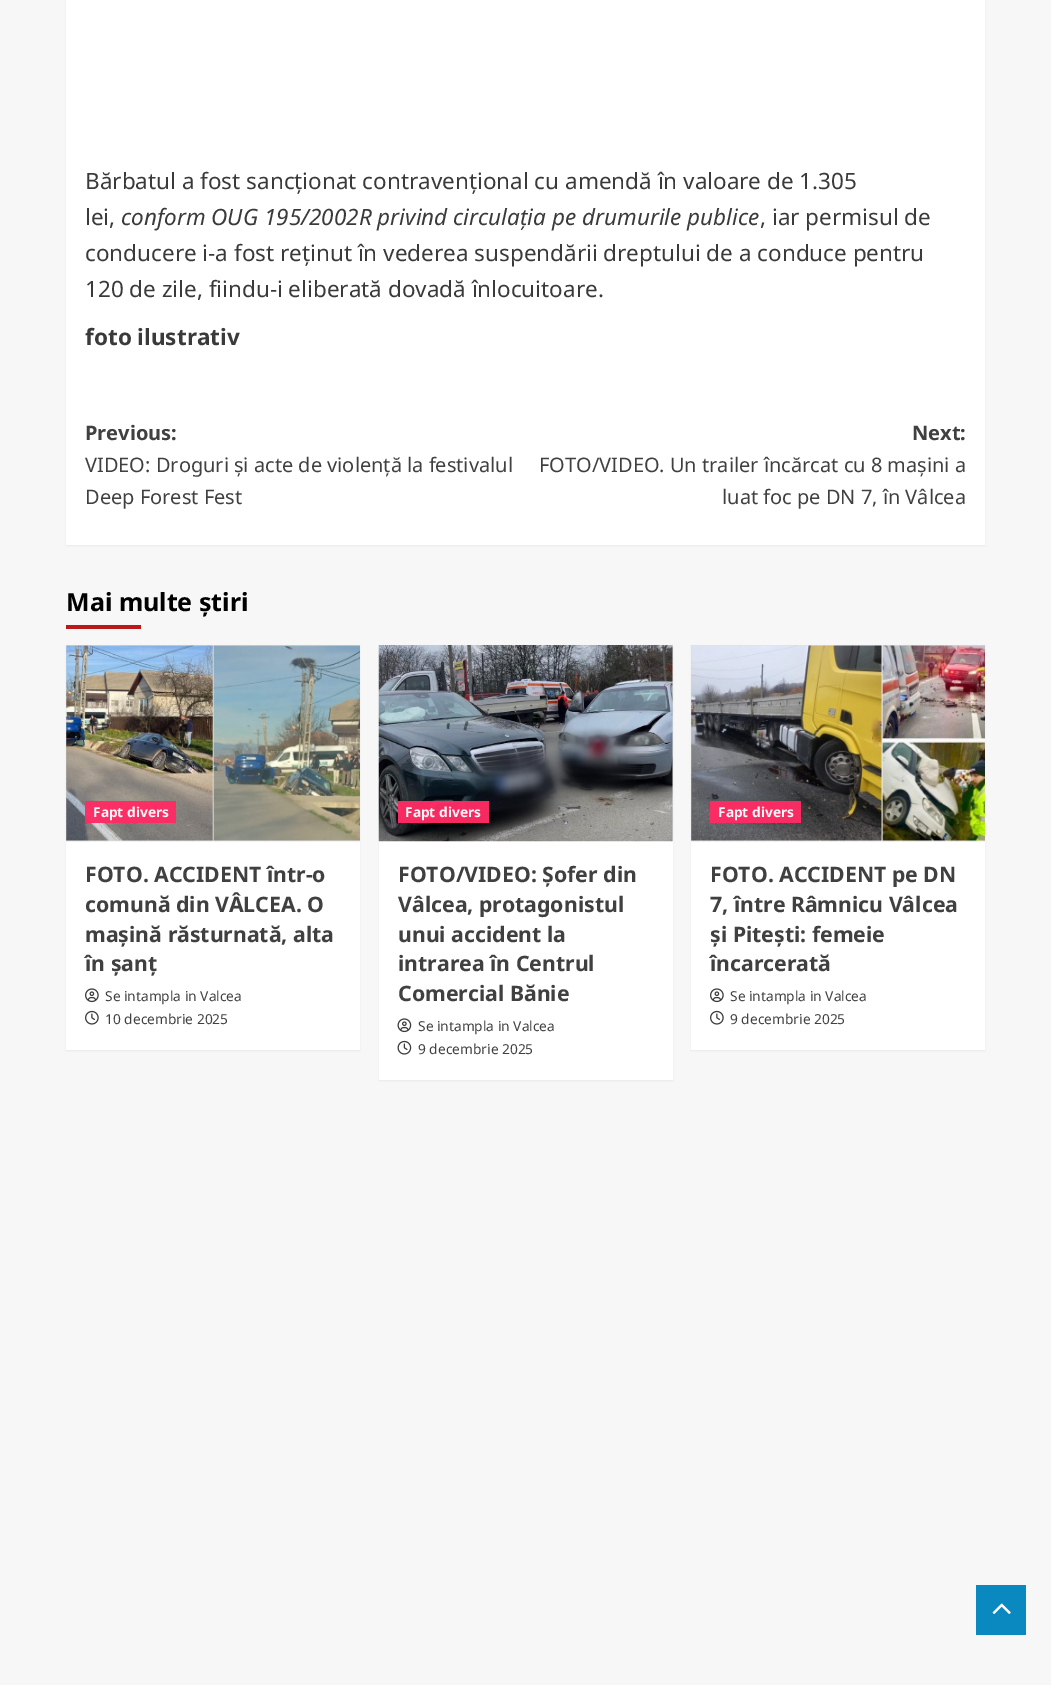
%!PS-Adobe-3.0
%%BoundingBox: 0 0 1051 1685
%%LanguageLevel: 3
%%Pages: 1
%%EndComments
%%BeginProlog
/setalpha { dup .setfillconstantalpha .setstrokeconstantalpha } def
/rrect { 5 dict begin { /r /h /w /y /x } { exch def } forall
  x r add y moveto x w add y 2 copy h add r arct x w add y h add x 1 index r arct
  x y h add x y r arct x y 2 copy exch w add exch r arct closepath end } def
/softshadow { 12 dict begin { /a /b /q /h /w /y /x } { exch def } forall gsave /was 0 def
  9 -2 -9 { dup b mul 4 div /e exch def 1 sub .425 mul 2.718 exch exp 1 add a .99 .min exch div /now exch def
    1 1 now sub 1 was sub div sub setalpha /was now def
    w h .min e 2 mul add 0 gt { x e sub y e sub w e 2 mul add h e 2 mul add
      q e add b .6 mul add w h .min 2 div e add .min 0 .max rrect fill } if } for grestore end } def
/drawimage { 5 dict begin { /h /w /y /x /name } { exch def } forall
  gsave x y translate w h scale
  w h 8 [w 0 0 h 0 0] name (r) file false 3 colorimage grestore end } def
%%EndProlog
%%BeginSetup
<< /PageSize [1051 1685] /PageUsesTransparency true >> setpagedevice
%%EndSetup
%%Page: 1 1
0 .pushpdf14devicefilter
0 1685 translate 1 -1 scale
4 setmiterlimit
0.969 setgray
0 0 1051 1685 rectfill
0 setgray
66 -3 919 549 0 1 0.05 softshadow
1 setgray
66 0 919 545 rectfill
0.733 0.098 0.098 setrgbcolor
66 625 75 4 rectfill
0 setgray
66 646 294 405 0 1 0.05 softshadow
1 setgray
66 645 294 405 rectfill
(images/1.raw) 66 645 294 197 drawimage
0.96 setalpha
1 0.169 0.388 setrgbcolor
85 801 91 22 rectfill
1 setalpha
(images/2.raw) 85 988 14 15 drawimage
(images/3.raw) 85 1010 14 15 drawimage
0 setgray
379 646 294 435 0 1 0.05 softshadow
1 setgray
379 841 294 239 rectfill
0.847 setgray
672 645 1 196 rectfill
(images/4.raw) 378 645 295 197 drawimage
0.96 setalpha
1 0.169 0.388 setrgbcolor
398 801 91 22 rectfill
1 setalpha
(images/5.raw) 397 1018 15 15 drawimage
(images/6.raw) 397 1040 15 15 drawimage
0 setgray
691 646 294 405 0 1 0.05 softshadow
1 setgray
691 645 294 405 rectfill
(images/7.raw) 691 645 294 197 drawimage
0.96 setalpha
1 0.169 0.388 setrgbcolor
710 801 91 22 rectfill
1 setalpha
(images/2.raw) 710 988 14 15 drawimage
(images/3.raw) 710 1010 14 15 drawimage
0.039 0.537 0.753 setrgbcolor
976 1585 50 50 rectfill
(images/8.raw) 992 1603 19 11 drawimage
/NotoSans-Regular [22.5 0 0 -22.5 0 0] selectfont
0.227 setgray
85 189 moveto (Bărbatul a fost sancționat contravențional cu amendă în valoare de 1.305) show
85 225 moveto (lei,) show
/NotoSans-Italic [22.5 0 0 -22.5 0 0] selectfont
121 225 moveto (conform OUG 195/2002R privind circulația pe drumurile publice) show
/NotoSans-Regular [22.5 0 0 -22.5 0 0] selectfont
760 225 moveto (, iar permisul de) show
85 261 moveto (conducere i-a fost reținut în vederea suspendării dreptului de a conduce pentru) show
85 297 moveto (120 de zile, fiindu-i eliberată dovadă înlocuitoare.) show
/NotoSans-Bold [22.5 0 0 -22.5 0 0] selectfont
85 345 moveto (foto ilustrativ) show
/NotoSans-Bold [20 0 0 -20 0 0] selectfont
0.251 setgray
85 440 moveto (Previous:) show
/NotoSans-Regular [20 0 0 -20 0 0] selectfont
85 472 moveto (VIDEO: Droguri și acte de violență la festivalul) show
85 504 moveto (Deep Forest Fest) show
/NotoSans-Bold [20 0 0 -20 0 0] selectfont
912 440 moveto (Next:) show
/NotoSans-Regular [20 0 0 -20 0 0] selectfont
539 472 moveto (FOTO/VIDEO. Un trailer încărcat cu 8 mașini a) show
722 504 moveto (luat foc pe DN 7, în Vâlcea) show
/NotoSans-Bold [25 0 0 -25 0 0] selectfont
0 setgray
66 611 moveto (Mai multe știri) show
/NotoSans-Bold [13.75 0 0 -13.75 0 0] selectfont
1 0.969 0.976 setrgbcolor
93 817 moveto (Fapt divers) show
/NotoSans-Bold [21.25 0 0 -21.25 0 0] selectfont
0.251 setgray
85 882 moveto (FOTO. ACCIDENT într-o) show
85 912 moveto (comună din VÂLCEA. O) show
85 942 moveto (mașină răsturnată, alta) show
85 971 moveto (în șanț) show
/NotoSans-Regular [13.75 0 0 -13.75 0 0] selectfont
105 1001 moveto (Se intampla in Valcea) show
105 1024 moveto (10 decembrie 2025) show
/NotoSans-Bold [13.75 0 0 -13.75 0 0] selectfont
1 0.969 0.976 setrgbcolor
405 817 moveto (Fapt divers) show
/NotoSans-Bold [21.25 0 0 -21.25 0 0] selectfont
0.251 setgray
398 882 moveto (FOTO/VIDEO: Șofer din) show
398 912 moveto (Vâlcea, protagonistul) show
398 942 moveto (unui accident la) show
398 971 moveto (intrarea în Centrul) show
398 1001 moveto (Comercial Bănie) show
/NotoSans-Regular [13.75 0 0 -13.75 0 0] selectfont
418 1031 moveto (Se intampla in Valcea) show
418 1054 moveto (9 decembrie 2025) show
/NotoSans-Bold [13.75 0 0 -13.75 0 0] selectfont
1 0.969 0.976 setrgbcolor
718 817 moveto (Fapt divers) show
/NotoSans-Bold [21.25 0 0 -21.25 0 0] selectfont
0.251 setgray
710 882 moveto (FOTO. ACCIDENT pe DN) show
710 912 moveto (7, între Râmnicu Vâlcea) show
710 942 moveto (și Pitești: femeie) show
710 971 moveto (încarcerată) show
/NotoSans-Regular [13.75 0 0 -13.75 0 0] selectfont
730 1001 moveto (Se intampla in Valcea) show
730 1024 moveto (9 decembrie 2025) show
.poppdf14devicefilter showpage
%%EOF
